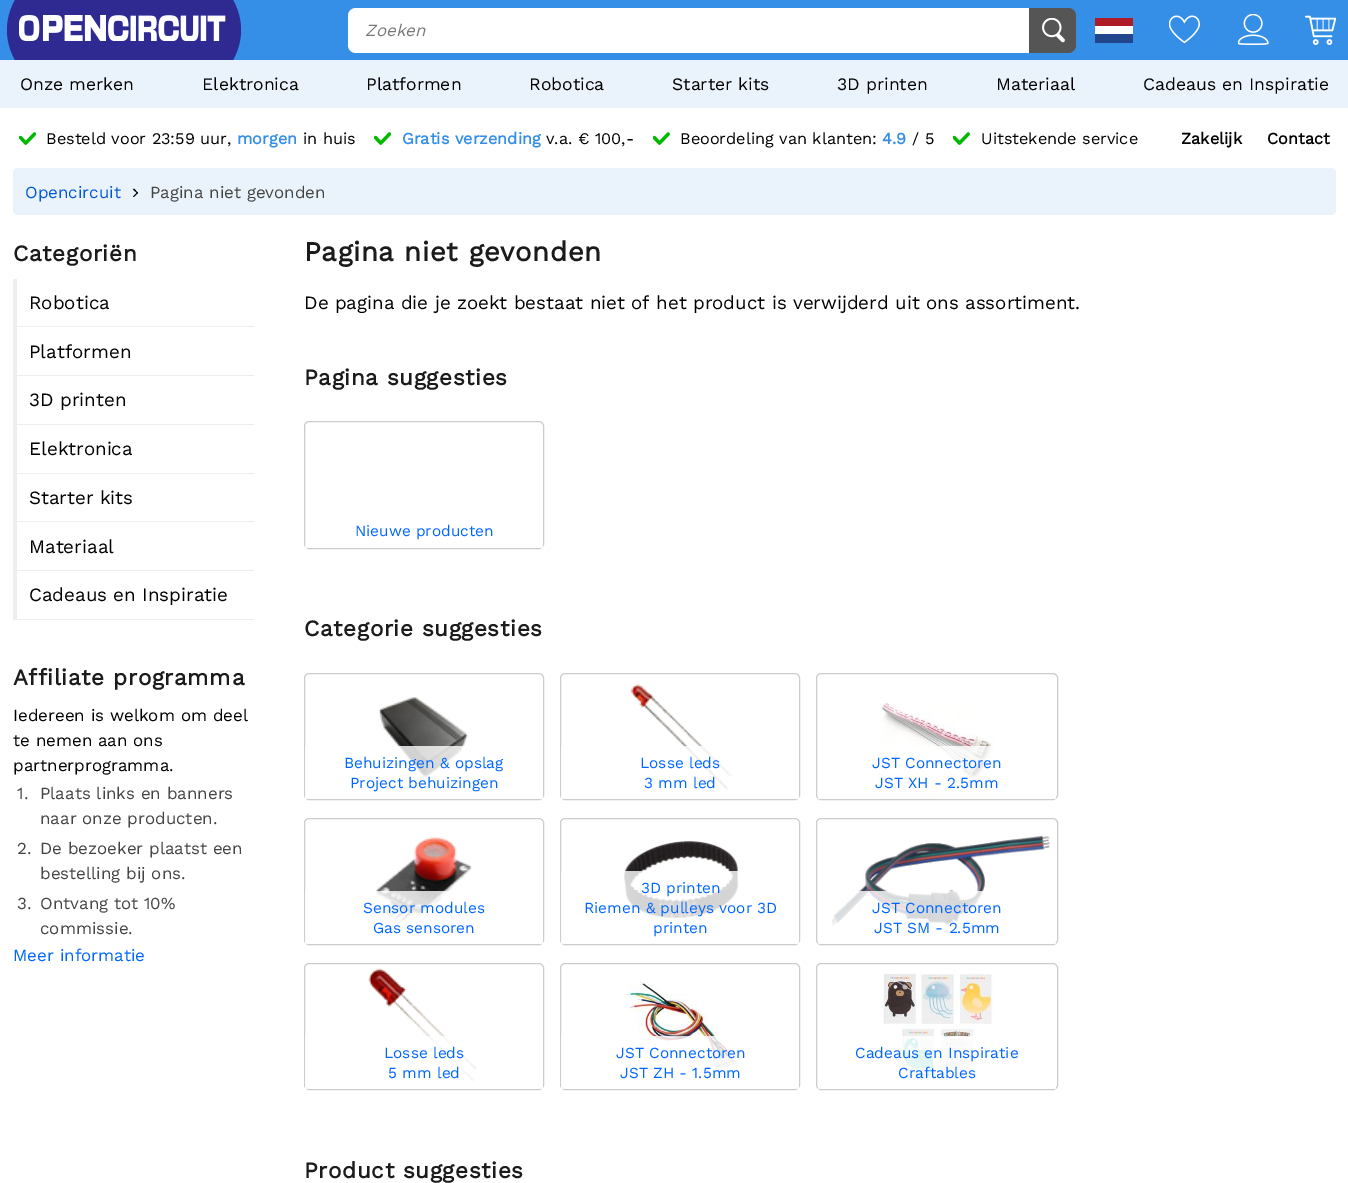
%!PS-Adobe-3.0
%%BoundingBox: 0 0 1348 1183
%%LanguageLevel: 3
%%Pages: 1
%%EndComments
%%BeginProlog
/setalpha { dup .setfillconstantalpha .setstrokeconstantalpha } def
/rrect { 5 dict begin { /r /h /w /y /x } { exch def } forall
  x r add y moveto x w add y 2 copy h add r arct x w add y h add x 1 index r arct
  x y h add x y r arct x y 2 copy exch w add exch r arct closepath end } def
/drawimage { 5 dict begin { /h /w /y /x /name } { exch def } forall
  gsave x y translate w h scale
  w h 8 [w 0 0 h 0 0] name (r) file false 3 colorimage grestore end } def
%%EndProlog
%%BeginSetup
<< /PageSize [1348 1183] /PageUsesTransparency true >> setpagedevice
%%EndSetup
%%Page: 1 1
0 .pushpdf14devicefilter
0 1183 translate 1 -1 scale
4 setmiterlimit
1 setgray
0 0 1348 1183 rectfill
0.208 0.561 0.902 setrgbcolor
0 0 1348 60 rectfill
gsave
0 0 260 60 rectclip
0.18 0.165 0.573 setrgbcolor
newpath 124 -52.5 moveto 188.5 -52.5 241 -15.5 241 30 curveto 241 75.5 188.5 112.5 124 112.5 curveto 59.5 112.5 7 75.5 7 30 curveto 7 -15.5 59.5 -52.5 124 -52.5 curveto closepath fill
grestore
(images/1.raw) 19 15 207 26 drawimage
1 setgray
newpath 356 8 moveto 1029 8 lineto 1029 53 lineto 356 53 lineto 351.5 53 348 49.5 348 45 curveto 348 16 lineto 348 11.5 351.5 8 356 8 curveto closepath fill
0.333 setgray
newpath 1029 8 moveto 1068 8 lineto 1072.5 8 1076 11.5 1076 16 curveto 1076 45 lineto 1076 49.5 1072.5 53 1068 53 curveto 1029 53 lineto closepath fill
(images/2.raw) 1042 18 23 25 drawimage
0.682 0.11 0.157 setrgbcolor
1095 18 38 8 rectfill
1 setgray
1095 26 38 8 rectfill
0.129 0.275 0.545 setrgbcolor
1095 34 38 9 rectfill
(images/3.raw) 1169 15 31 29 drawimage
(images/4.raw) 1238 14 31 31 drawimage
(images/5.raw) 1305 15 31 30 drawimage
0.918 0.953 0.988 setrgbcolor
0 60 1348 48 rectfill
(images/6.raw) 19 132 17 13 drawimage
(images/6.raw) 374 132 17 13 drawimage
(images/7.raw) 653 132 17 13 drawimage
(images/7.raw) 953 132 17 13 drawimage
13 168 1323 47 5 rrect fill
0 setgray
newpath 133 189.5 moveto 134 188.5 lineto 138 193 lineto 137.5 193.5 lineto closepath fill
newpath 133 196.5 moveto 137.5 192 lineto 138 193 lineto 134 197 lineto closepath fill
0.933 setgray
13 326 241 1 rectfill
13 279 4 49 rectfill
13 375 241 1 rectfill
13 328 4 48 rectfill
13 424 241 1 rectfill
13 376 4 49 rectfill
13 473 241 1 rectfill
13 425 4 49 rectfill
13 521 241 1 rectfill
13 474 4 49 rectfill
13 570 241 1 rectfill
13 523 4 48 rectfill
13 619 241 1 rectfill
13 571 4 49 rectfill
0.8 setgray
304.5 421.5 239 127 4.5 rrect stroke
0.8 setalpha
1 setgray
305 545 238 3 rectfill
1 setalpha
(images/8.raw) 378 697 90 81 drawimage
0.8 setgray
304.5 673.5 239 126 4.5 rrect stroke
0.8 setalpha
1 setgray
305 746 238 53 rectfill
1 setalpha
(images/9.raw) 630 684 104 106 drawimage
0.8 setgray
560.5 673.5 239 126 4.5 rrect stroke
0.8 setalpha
1 setgray
561 746 238 53 rectfill
1 setalpha
(images/10.raw) 878 702 117 97 drawimage
0.8 setgray
816.5 673.5 241 126 4.5 rrect stroke
0.8 setalpha
1 setgray
818 746 238 53 rectfill
1 setalpha
(images/11.raw) 375 837 97 86 drawimage
0.8 setgray
304.5 818.5 239 126 4.5 rrect stroke
0.8 setalpha
1 setgray
305 891 238 53 rectfill
1 setalpha
(images/12.raw) 623 840 116 79 drawimage
0.8 setgray
560.5 818.5 239 126 4.5 rrect stroke
0.8 setalpha
1 setgray
561 871 238 73 rectfill
1 setalpha
(images/13.raw) 831 835 219 92 drawimage
0.8 setgray
816.5 818.5 241 126 4.5 rrect stroke
0.8 setalpha
1 setgray
818 891 238 53 rectfill
1 setalpha
(images/14.raw) 368 968 110 114 drawimage
0.8 setgray
304.5 963.5 239 126 4.5 rrect stroke
0.8 setalpha
1 setgray
305 1036 238 53 rectfill
1 setalpha
(images/15.raw) 626 981 112 90 drawimage
0.8 setgray
560.5 963.5 239 126 4.5 rrect stroke
0.8 setalpha
1 setgray
561 1036 238 53 rectfill
1 setalpha
(images/16.raw) 883 973 112 110 drawimage
0.8 setgray
816.5 963.5 241 126 4.5 rrect stroke
0.8 setalpha
1 setgray
818 1036 238 53 rectfill
/WorkSans-Italic [16.9 0 0 -16.9 0 0] selectfont
1 setalpha
0.471 setgray
365 36 moveto (Zoeken) show
/WorkSans-Regular [17.5 0 0 -17.5 0 0] selectfont
0 setgray
20 90 moveto (Onze merken) show
202 90 moveto (Elektronica) show
366 90 moveto (Platformen) show
529 90 moveto (Robotica) show
672 90 moveto (Starter kits) show
837 90 moveto (3D printen) show
996 90 moveto (Materiaal) show
1143 90 moveto (Cadeaus en Inspiratie) show
/WorkSans-Regular [16.25 0 0 -16.25 0 0] selectfont
46 144 moveto (Besteld voor 23:59 uur,) show
/WorkSans-Bold [16.25 0 0 -16.25 0 0] selectfont
0.208 0.561 0.902 setrgbcolor
237 144 moveto (morgen) show
/WorkSans-Regular [16.25 0 0 -16.25 0 0] selectfont
0 setgray
303 144 moveto (in huis) show
/WorkSans-Bold [16.25 0 0 -16.25 0 0] selectfont
0.208 0.561 0.902 setrgbcolor
402 144 moveto (Gratis verzending) show
/WorkSans-Regular [16.25 0 0 -16.25 0 0] selectfont
0 setgray
546 144 moveto (v.a. € 100,-) show
680 144 moveto (Beoordeling van klanten:) show
/WorkSans-Bold [16.25 0 0 -16.25 0 0] selectfont
0.208 0.561 0.902 setrgbcolor
882 144 moveto (4.9) show
/WorkSans-Regular [16.25 0 0 -16.25 0 0] selectfont
0 setgray
912 144 moveto (/ 5) show
981 144 moveto (Uitstekende service) show
/WorkSans-Bold [16.25 0 0 -16.25 0 0] selectfont
1181 144 moveto (Zakelijk) show
1267 144 moveto (Contact) show
/WorkSans-Regular [16.9 0 0 -16.9 0 0] selectfont
0.008 0.341 0.847 setrgbcolor
25 198 moveto (Opencircuit) show
0.267 setgray
150 198 moveto (Pagina niet gevonden) show
/WorkSans-Bold [22.5 0 0 -22.5 0 0] selectfont
0.106 setgray
13 261 moveto 0.6 0 (Categoriën) ashow
/WorkSans-Regular [18.75 0 0 -18.75 0 0] selectfont
0 setgray
29 309 moveto (Robotica) show
29 358 moveto (Platformen) show
29 406 moveto (3D printen) show
29 455 moveto (Elektronica) show
29 504 moveto (Starter kits) show
29 553 moveto (Materiaal) show
29 601 moveto (Cadeaus en Inspiratie) show
/WorkSans-Bold [22.5 0 0 -22.5 0 0] selectfont
0.106 setgray
13 685 moveto 0.6 0 (Affiliate programma) ashow
/WorkSans-Regular [16.9 0 0 -16.9 0 0] selectfont
0 setgray
13 721 moveto (Iedereen is welkom om deel) show
13 746 moveto (te nemen aan ons) show
13 771 moveto (partnerprogramma.) show
0.267 setgray
17 799 moveto (1.) show
40 799 moveto (Plaats links en banners) show
40 824 moveto (naar onze producten.) show
17 854 moveto (2.) show
40 854 moveto (De bezoeker plaatst een) show
40 879 moveto (bestelling bij ons.) show
17 909 moveto (3.) show
40 909 moveto (Ontvang tot 10%) show
40 934 moveto (commissie.) show
0 0.4 1 setrgbcolor
13 961 moveto (Meer informatie) show
/WorkSans-Bold [27.5 0 0 -27.5 0 0] selectfont
0.106 setgray
304 261 moveto 0.6 0 (Pagina niet gevonden) ashow
/WorkSans-Regular [18.75 0 0 -18.75 0 0] selectfont
0 setgray
304 309 moveto (De pagina die je zoekt bestaat niet of het product is verwijderd uit ons assortiment.) show
/WorkSans-Bold [22.5 0 0 -22.5 0 0] selectfont
0.106 setgray
304 385 moveto 0.6 0 (Pagina suggesties) ashow
/WorkSans-Regular [15.4 0 0 -15.4 0 0] selectfont
0 0.4 1 setrgbcolor
355 536 moveto (Nieuwe producten) show
/WorkSans-Bold [22.5 0 0 -22.5 0 0] selectfont
0.106 setgray
304 636 moveto 0.6 0 (Categorie suggesties) ashow
/WorkSans-Regular [15.4 0 0 -15.4 0 0] selectfont
0 0.4 1 setrgbcolor
344 768 moveto (Behuizingen & opslag) show
350 788 moveto (Project behuizingen) show
640 768 moveto (Losse leds) show
644 788 moveto (3 mm led) show
872 768 moveto (JST Connectoren) show
875 788 moveto (JST XH - 2.5mm) show
363 913 moveto (Sensor modules) show
373 933 moveto (Gas sensoren) show
641 893 moveto (3D printen) show
584 913 moveto (Riemen & pulleys voor 3D) show
653 933 moveto (printen) show
872 913 moveto (JST Connectoren) show
874 933 moveto (JST SM - 2.5mm) show
384 1058 moveto (Losse leds) show
388 1078 moveto (5 mm led) show
616 1058 moveto (JST Connectoren) show
620 1078 moveto (JST ZH - 1.5mm) show
855 1058 moveto (Cadeaus en Inspiratie) show
898 1078 moveto (Craftables) show
/WorkSans-Bold [22.5 0 0 -22.5 0 0] selectfont
0.106 setgray
304 1178 moveto 0.6 0 (Product suggesties) ashow
.poppdf14devicefilter showpage
%%EOF
